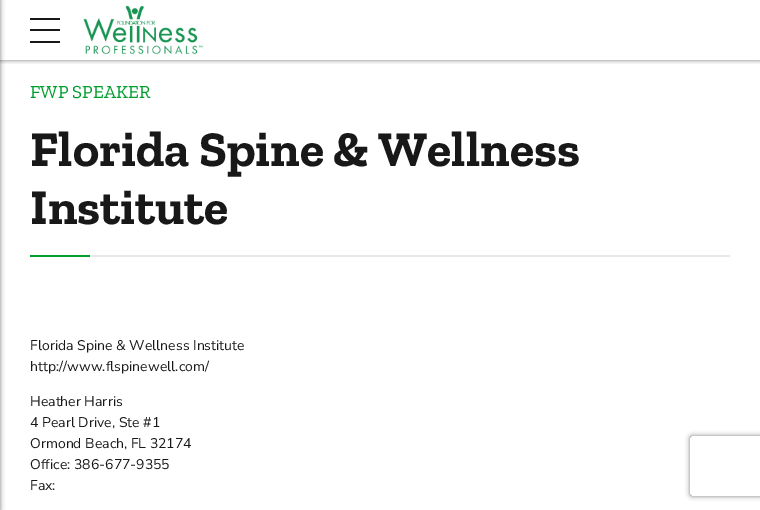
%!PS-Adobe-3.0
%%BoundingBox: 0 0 760 510
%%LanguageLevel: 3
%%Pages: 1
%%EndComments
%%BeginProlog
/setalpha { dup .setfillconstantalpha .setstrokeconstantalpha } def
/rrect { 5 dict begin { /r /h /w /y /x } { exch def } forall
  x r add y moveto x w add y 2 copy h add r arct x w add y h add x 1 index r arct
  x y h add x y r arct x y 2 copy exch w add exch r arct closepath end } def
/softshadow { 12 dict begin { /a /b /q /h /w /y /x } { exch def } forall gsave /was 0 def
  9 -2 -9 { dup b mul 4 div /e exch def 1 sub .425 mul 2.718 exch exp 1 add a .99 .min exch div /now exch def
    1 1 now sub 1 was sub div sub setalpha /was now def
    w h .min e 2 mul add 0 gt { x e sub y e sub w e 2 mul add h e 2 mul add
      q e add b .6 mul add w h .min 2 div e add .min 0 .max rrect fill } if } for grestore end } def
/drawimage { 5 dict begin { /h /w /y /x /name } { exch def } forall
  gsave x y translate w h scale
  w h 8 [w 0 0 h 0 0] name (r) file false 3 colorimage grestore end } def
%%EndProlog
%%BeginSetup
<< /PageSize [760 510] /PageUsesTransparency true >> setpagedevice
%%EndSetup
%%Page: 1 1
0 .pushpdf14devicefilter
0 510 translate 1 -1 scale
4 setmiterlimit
1 setgray
0 0 760 510 rectfill
gsave
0 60 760 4 rectclip
0 setgray
0 0 760 60 0 2.5 0.5 softshadow
grestore
0.094 setgray
30 18 30 2 rectfill
30 29 30 2 rectfill
30 41 30 2 rectfill
(images/1.raw) 83 5 120 50 drawimage
0 setgray
-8 0 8 510 0 2.5 0.5 softshadow
0 0.62 0.184 setrgbcolor
30 255 60 2 rectfill
0.91 setgray
90 255 640 2 rectfill
gsave
newpath 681 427 moveto 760 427 lineto 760 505 lineto 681 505 lineto closepath 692 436 moveto 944 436 lineto 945 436 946 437 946 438 curveto 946 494 lineto 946 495 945 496 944 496 curveto 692 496 lineto 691 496 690 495 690 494 curveto 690 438 lineto 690 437 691 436 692 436 curveto closepath eoclip newpath
0.502 setgray
690 436 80 60 2 2.5 1 softshadow
grestore
/ZillaSlab-Regular [18.5 0 0 -18.5 0 0] selectfont
0 0.62 0.184 setrgbcolor
30 98 moveto (FWP SPEAKER) show
/ZillaSlab-Bold [50 0 0 -50 0 0] selectfont
0.094 setgray
30 166 moveto (Florida Spine & Wellness) show
30 224 moveto (Institute) show
/NunitoSans-Regular [14 0 0 -14 0 0] selectfont
30 350 moveto (Florida Spine & Wellness Institute) show
30 371 moveto (http://www.flspinewell.com/) show
30 406 moveto (Heather Harris) show
30 427 moveto (4 Pearl Drive, Ste #1) show
30 448 moveto (Ormond Beach, FL 32174) show
30 469 moveto (Office: 386-677-9355) show
30 490 moveto (Fax:) show
.poppdf14devicefilter showpage
%%EOF
